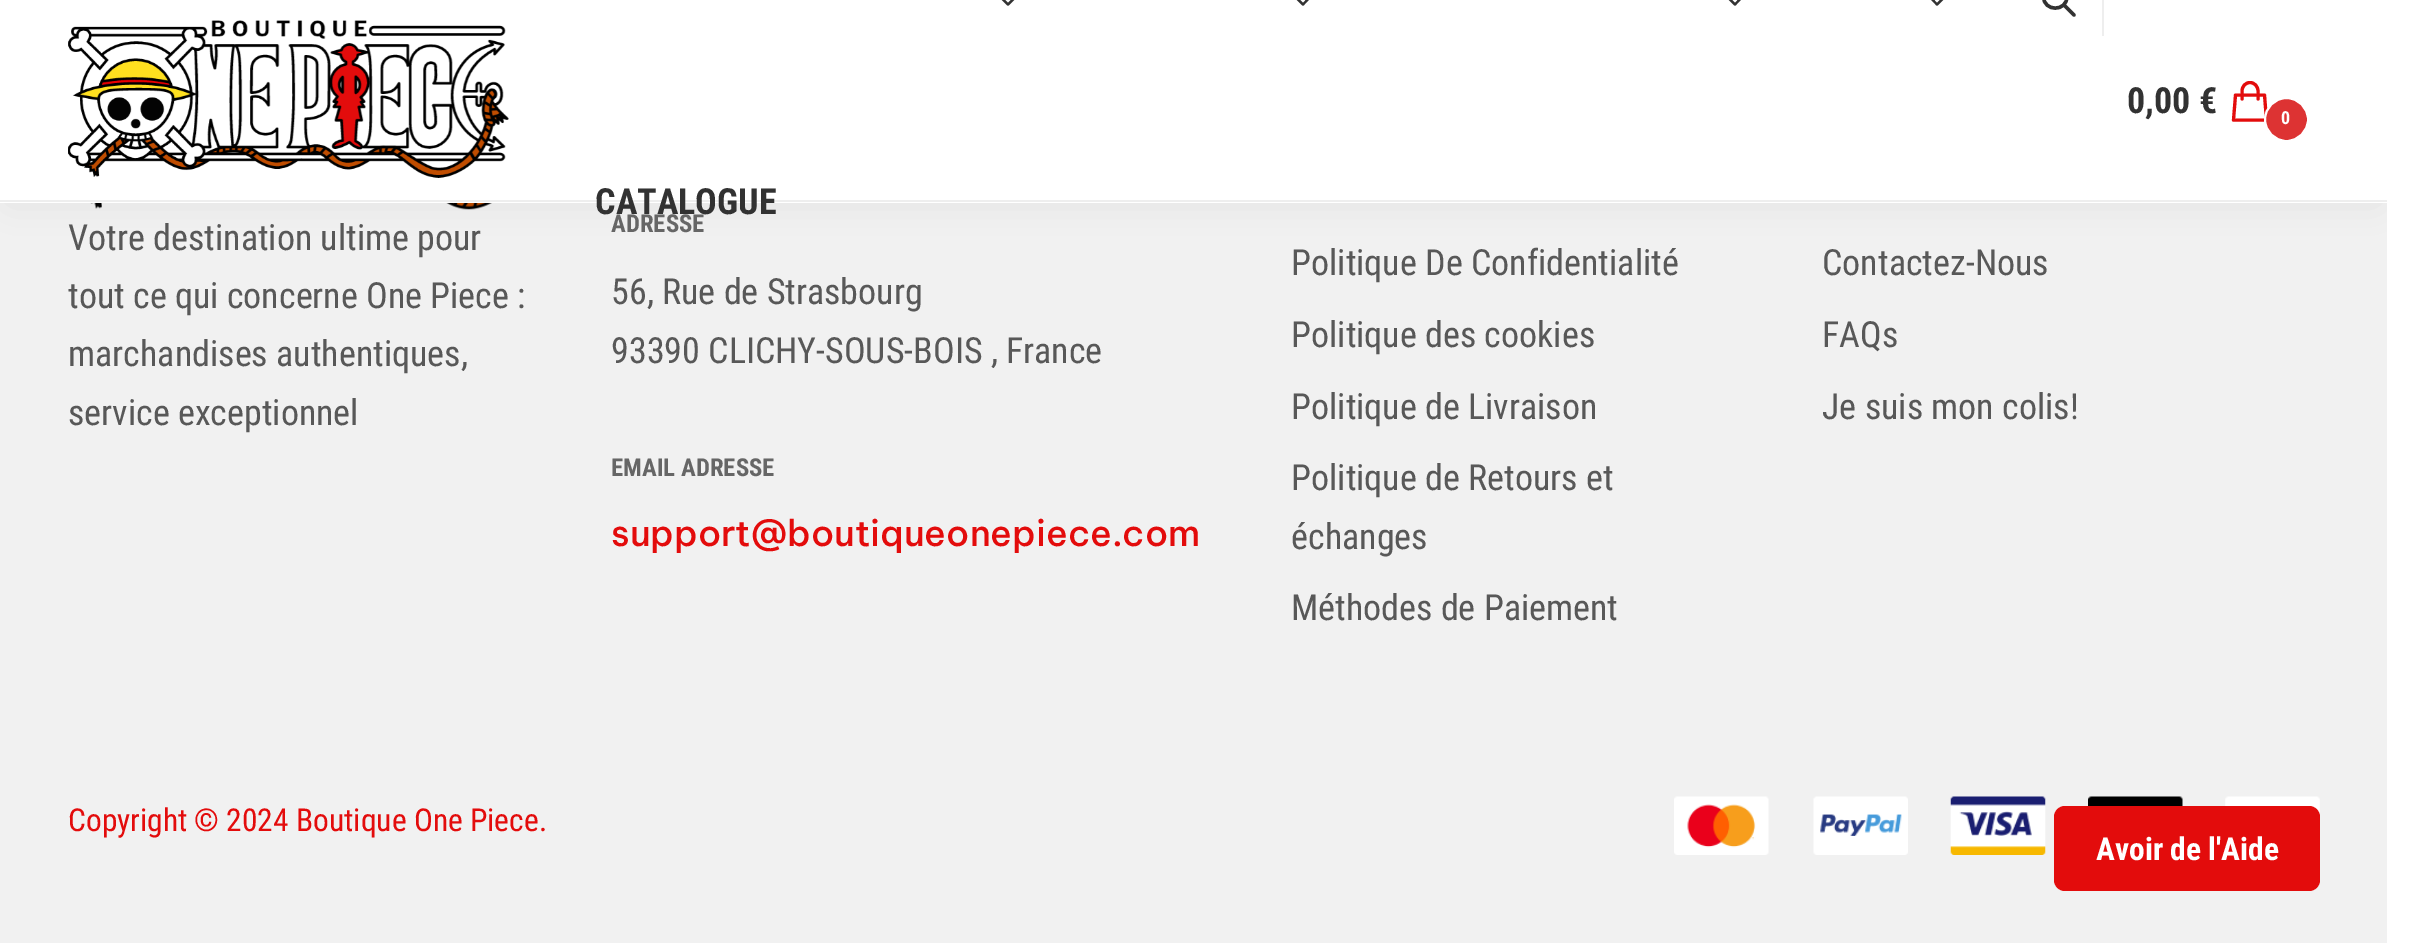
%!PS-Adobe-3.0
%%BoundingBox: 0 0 2419 943
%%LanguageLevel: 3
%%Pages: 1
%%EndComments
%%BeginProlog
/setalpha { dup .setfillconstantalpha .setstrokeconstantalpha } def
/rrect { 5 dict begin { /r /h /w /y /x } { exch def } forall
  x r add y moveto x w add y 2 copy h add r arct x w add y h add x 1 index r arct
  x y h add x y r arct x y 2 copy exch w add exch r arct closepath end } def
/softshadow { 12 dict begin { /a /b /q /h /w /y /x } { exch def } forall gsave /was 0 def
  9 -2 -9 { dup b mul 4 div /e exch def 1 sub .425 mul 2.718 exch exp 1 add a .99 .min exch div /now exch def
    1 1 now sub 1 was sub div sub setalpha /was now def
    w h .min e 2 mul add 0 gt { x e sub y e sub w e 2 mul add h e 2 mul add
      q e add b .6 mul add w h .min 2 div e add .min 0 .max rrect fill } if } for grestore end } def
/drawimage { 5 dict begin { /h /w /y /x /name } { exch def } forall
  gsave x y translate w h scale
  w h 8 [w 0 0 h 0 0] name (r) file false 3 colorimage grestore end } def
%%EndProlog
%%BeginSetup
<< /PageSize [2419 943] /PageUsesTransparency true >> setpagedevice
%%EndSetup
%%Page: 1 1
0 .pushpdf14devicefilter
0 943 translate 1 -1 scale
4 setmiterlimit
0.945 setgray
0 0 2419 943 rectfill
(images/2.raw) 90 203 402 7 drawimage
0 setgray
11 18 2365 180 0 17 0.08 softshadow
1 setgray
0 0 2387 203 rectfill
0.933 setgray
0 200 2387 2 rectfill
(images/1.raw) 68 20 441 158 drawimage
0.196 setgray
3.4 setlinewidth
1 setlinecap
1 setlinejoin
newpath 2074 15 moveto 2064 5 lineto 2067 -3.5 moveto 2067 12 2043.5 12 2043.5 -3.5 curveto 2043.5 -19 2067 -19 2067 -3.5 curveto closepath stroke
0.933 setgray
2102 0 2 36 rectfill
0.89 0.047 0.047 setrgbcolor
3.1 setlinewidth
newpath 2258 99 moveto 2258 91 lineto 2258 86.5 2254.5 82.5 2250 82.5 curveto 2245.5 82.5 2242 86.5 2242 91 curveto 2242 99 lineto 2235.5 95 moveto 2264.5 95 lineto 2266.5 120 lineto 2233.5 120 lineto closepath stroke
0.867 0.2 0.2 setrgbcolor
newpath 2286.5 119.5 21.5 0 360 arc closepath gsave fill grestore
1 setgray
2 setlinewidth
0 setlinecap
0 setlinejoin
stroke
0.196 setgray
2.2 setlinewidth
1 setlinecap
1 setlinejoin
newpath 1016 -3.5 moveto 1008 4.5 lineto 1000 -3.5 lineto stroke
newpath 1310.5 -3.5 moveto 1303 4.5 lineto 1295 -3.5 lineto stroke
newpath 1742.5 -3.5 moveto 1735 4.5 lineto 1727 -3.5 lineto stroke
newpath 1945 -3.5 moveto 1937 4.5 lineto 1929.5 -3.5 lineto stroke
1 setgray
2387 0 32 943 rectfill
(images/3.raw) 1674 796 95 59 drawimage
(images/4.raw) 1813 796 95 59 drawimage
(images/5.raw) 1950 796 96 59 drawimage
(images/6.raw) 2088 796 95 10 drawimage
(images/7.raw) 2225 796 95 21 drawimage
0.89 0.047 0.047 setrgbcolor
2054 806 266 85 11 rrect fill
/RobotoCondensed-Bold [36 0 0 -36 0 0] selectfont
0.196 setgray
2127 113 moveto (0,00 €) show
/RobotoCondensed-Bold [18 0 0 -18 0 0] selectfont
1 setgray
2281 124 moveto (0) show
/RobotoCondensed-Bold [36 0 0 -36 0 0] selectfont
0.196 setgray
595 214 moveto (CATALOGUE) show
/RobotoCondensed-Regular [36 0 0 -36 0 0] selectfont
0.345 setgray
68 250 moveto (Votre destination ultime pour) show
68 308 moveto (tout ce qui concerne One Piece :) show
68 366 moveto (marchandises authentiques,) show
68 425 moveto (service exceptionnel) show
/RobotoCondensed-Bold [24.75 0 0 -24.75 0 0] selectfont
0.4 setgray
611 232 moveto (ADRESSE) show
/RobotoCondensed-Regular [36 0 0 -36 0 0] selectfont
0.345 setgray
611 304 moveto (56, Rue de Strasbourg) show
611 363 moveto (93390 CLICHY-SOUS-BOIS , France) show
/RobotoCondensed-Bold [24.75 0 0 -24.75 0 0] selectfont
0.4 setgray
611 476 moveto (EMAIL ADRESSE) show
/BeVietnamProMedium-Medium [36 0 0 -36 0 0] selectfont
0.89 0.047 0.047 setrgbcolor
611 546 moveto (support@boutiqueonepiece.com) show
/RobotoCondensed-Regular [36 0 0 -36 0 0] selectfont
0.345 setgray
1291 275 moveto (Politique De Confidentialité) show
1291 347 moveto (Politique des cookies) show
1291 419 moveto (Politique de Livraison) show
1291 490 moveto (Politique de Retours et) show
1291 549 moveto (échanges) show
1291 620 moveto (Méthodes de Paiement) show
1822 275 moveto (Contactez-Nous) show
1822 347 moveto (FAQs) show
1822 419 moveto (Je suis mon colis!) show
/RobotoCondensed-Regular [31.5 0 0 -31.5 0 0] selectfont
0.89 0.047 0.047 setrgbcolor
68 831 moveto (Copyright © 2024 Boutique One Piece.) show
/RobotoCondensed-Bold [31.5 0 0 -31.5 0 0] selectfont
1 setgray
2096 860 moveto (Avoir de l'Aide) show
.poppdf14devicefilter showpage
%%EOF
